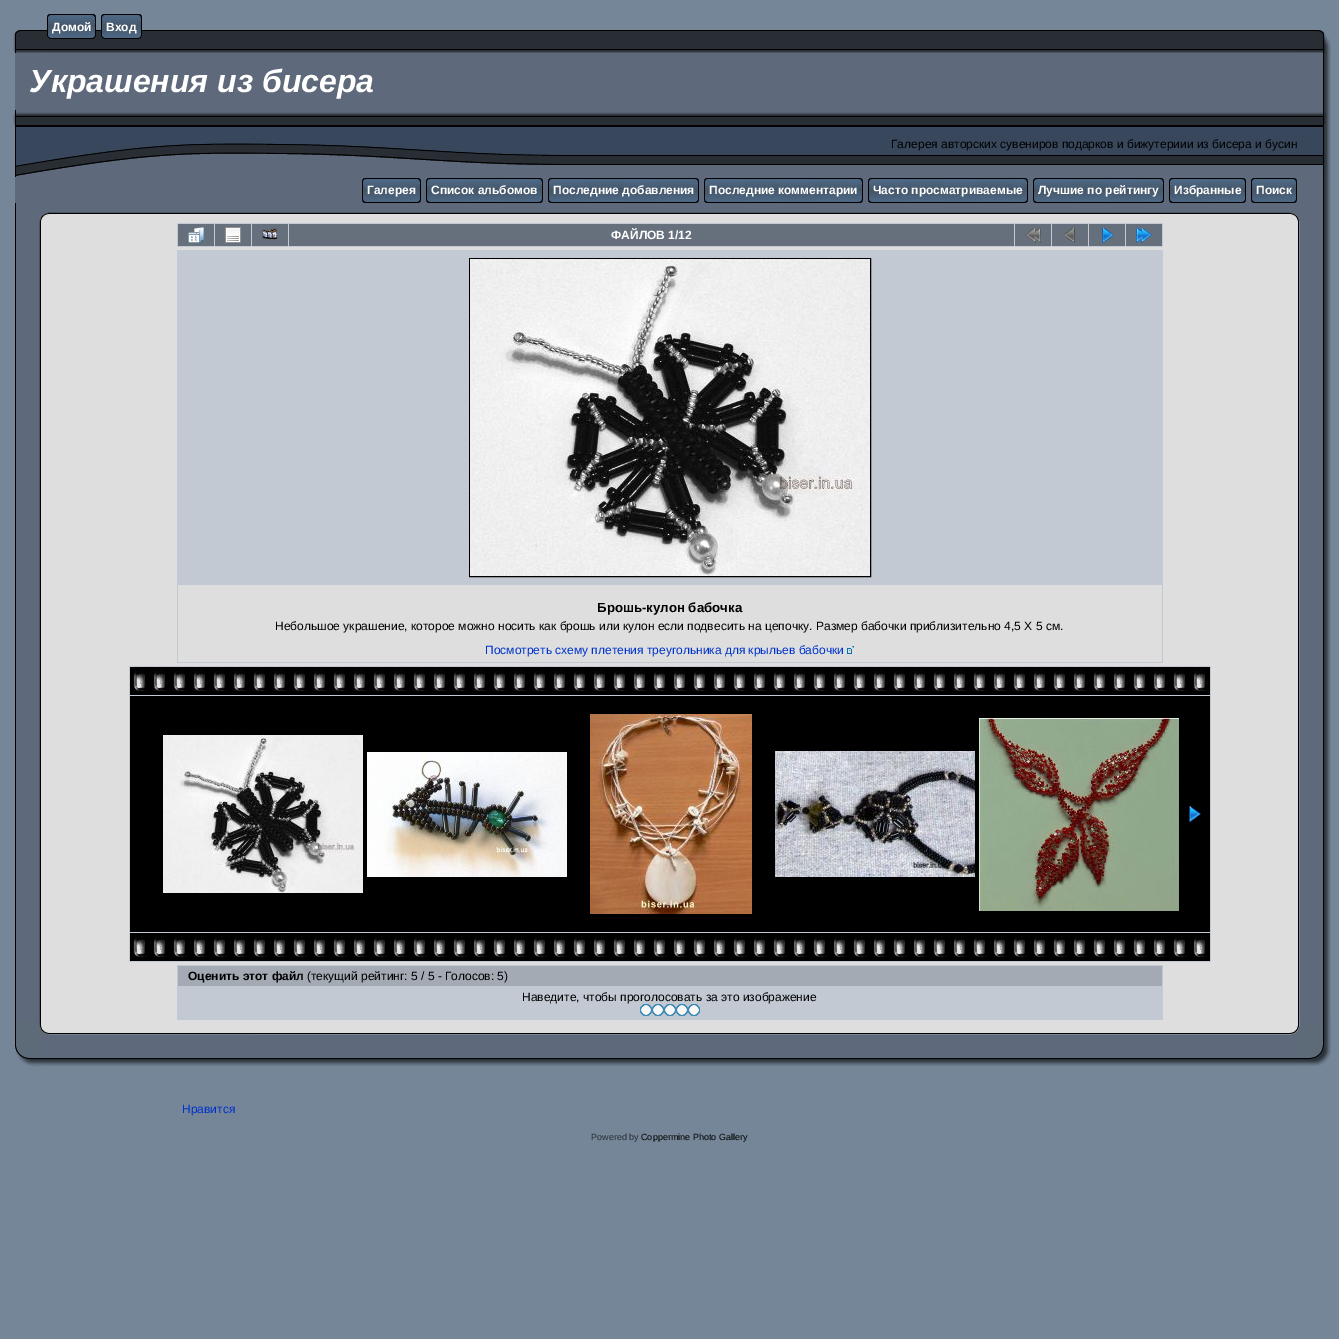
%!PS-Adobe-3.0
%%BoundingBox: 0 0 1339 1339
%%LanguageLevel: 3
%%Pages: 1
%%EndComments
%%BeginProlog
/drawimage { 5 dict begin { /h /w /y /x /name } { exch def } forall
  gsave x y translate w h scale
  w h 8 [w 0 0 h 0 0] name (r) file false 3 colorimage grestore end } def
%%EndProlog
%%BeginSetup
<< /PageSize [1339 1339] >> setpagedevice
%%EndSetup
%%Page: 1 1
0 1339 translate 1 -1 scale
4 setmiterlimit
0.459 0.525 0.596 setrgbcolor
0 0 1339 1339 rectfill
(images/1.raw) 42 30 1255 23 drawimage
(images/2.raw) 47 14 5 25 drawimage
(images/3.raw) 52 14 39 25 drawimage
(images/4.raw) 91 14 5 25 drawimage
(images/2.raw) 101 14 5 25 drawimage
(images/5.raw) 106 14 31 25 drawimage
(images/4.raw) 137 14 5 25 drawimage
(images/6.raw) 13 30 29 23 drawimage
(images/7.raw) 1297 30 34 23 drawimage
0.369 0.412 0.482 setrgbcolor
15 53 1308 57 rectfill
(images/8.raw) 1323 53 8 57 drawimage
(images/9.raw) 13 110 547 67 drawimage
(images/10.raw) 560 110 737 67 drawimage
(images/11.raw) 1297 110 34 67 drawimage
15 177 1282 26 rectfill
(images/12.raw) 1297 177 34 26 drawimage
(images/13.raw) 362 178 5 25 drawimage
(images/14.raw) 367 178 49 25 drawimage
(images/15.raw) 416 178 5 25 drawimage
(images/13.raw) 426 178 5 25 drawimage
(images/16.raw) 431 178 107 25 drawimage
(images/15.raw) 538 178 5 25 drawimage
(images/13.raw) 548 178 5 25 drawimage
(images/17.raw) 553 178 141 25 drawimage
(images/15.raw) 694 178 5 25 drawimage
(images/13.raw) 704 178 5 25 drawimage
(images/18.raw) 709 178 149 25 drawimage
(images/15.raw) 858 178 5 25 drawimage
(images/13.raw) 868 178 5 25 drawimage
(images/19.raw) 873 178 150 25 drawimage
(images/15.raw) 1023 178 5 25 drawimage
(images/13.raw) 1033 178 5 25 drawimage
(images/20.raw) 1038 178 121 25 drawimage
(images/15.raw) 1159 178 5 25 drawimage
(images/13.raw) 1169 178 5 25 drawimage
(images/21.raw) 1174 178 67 25 drawimage
(images/15.raw) 1241 178 5 25 drawimage
(images/13.raw) 1251 178 5 25 drawimage
(images/22.raw) 1256 178 36 25 drawimage
(images/15.raw) 1292 178 5 25 drawimage
(images/23.raw) 15 203 27 18 drawimage
(images/24.raw) 42 203 14 18 drawimage
(images/25.raw) 56 203 1227 18 drawimage
(images/26.raw) 1283 203 14 18 drawimage
(images/27.raw) 1297 203 34 18 drawimage
(images/28.raw) 15 221 27 801 drawimage
0.871 setgray
42 221 1255 801 rectfill
0.761 0.788 0.827 setrgbcolor
177 223 986 24 rectfill
0.4 0.439 0.486 setrgbcolor
178 224 36 22 rectfill
(images/29.raw) 188 227 16 16 drawimage
215 224 36 22 rectfill
(images/30.raw) 225 227 16 16 drawimage
252 224 36 22 rectfill
(images/31.raw) 262 228 16 12 drawimage
289 224 725 22 rectfill
1015 224 36 22 rectfill
(images/32.raw) 1025 227 16 16 drawimage
1052 224 36 22 rectfill
(images/33.raw) 1063 227 12 16 drawimage
1089 224 36 22 rectfill
(images/34.raw) 1102 227 12 16 drawimage
1126 224 36 22 rectfill
(images/35.raw) 1136 227 16 16 drawimage
0.761 0.788 0.827 setrgbcolor
177 250 986 413 rectfill
0 setgray
469.5 258.5 401 318 rectstroke
(images/36.raw) 470 259 400 317 drawimage
0.871 setgray
178 585 984 77 rectfill
(images/37.raw) 847 646 7 8 drawimage
0.761 0.788 0.827 setrgbcolor
129 666 1082 296 rectfill
0 setgray
130 667 1080 28 rectfill
(images/38.raw) 133 667 1074 24 drawimage
130 696 1080 236 rectfill
(images/39.raw) 163 735 200 158 drawimage
(images/40.raw) 367 752 200 125 drawimage
(images/41.raw) 590 714 162 200 drawimage
(images/42.raw) 775 751 200 126 drawimage
(images/43.raw) 979 718 200 193 drawimage
(images/44.raw) 1189 806 12 16 drawimage
130 933 1080 28 rectfill
(images/38.raw) 133 933 1074 24 drawimage
0.761 0.788 0.827 setrgbcolor
177 965 986 55 rectfill
0.639 0.667 0.706 setrgbcolor
178 966 984 20 rectfill
(images/45.raw) 640 1004 12 12 drawimage
(images/45.raw) 652 1004 12 12 drawimage
(images/45.raw) 664 1004 12 12 drawimage
(images/45.raw) 676 1004 12 12 drawimage
(images/45.raw) 688 1004 12 12 drawimage
(images/46.raw) 1297 221 34 801 drawimage
(images/47.raw) 1299 458 1 92 drawimage
(images/48.raw) 15 1022 27 45 drawimage
(images/49.raw) 42 1022 208 44 drawimage
(images/50.raw) 250 1022 839 44 drawimage
(images/51.raw) 1089 1022 208 44 drawimage
(images/52.raw) 1297 1022 34 44 drawimage
/LiberationSans-Bold [12 0 0 -12 0 0] selectfont
1 setgray
52 31 moveto (Домой) show
106 31 moveto (Вход) show
/LiberationSans-BoldItalic [32 0 0 -32 0 0] selectfont
29 92 moveto (Украшения из бисера) show
/LiberationSans-Regular [12 0 0 -12 0 0] selectfont
0 setgray
891 148 moveto (Галерея авторских сувениров подарков и бижутериии из бисера и бусин) show
/LiberationSans-Bold [12 0 0 -12 0 0] selectfont
1 setgray
367 194 moveto (Галерея) show
431 194 moveto (Список альбомов) show
553 194 moveto (Последние добавления) show
709 194 moveto (Последние комментарии) show
873 194 moveto (Часто просматриваемые) show
1038 194 moveto (Лучшие по рейтингу) show
1174 194 moveto (Избранные) show
1256 194 moveto (Поиск) show
611 239 moveto (ФАЙЛОВ 1/12) show
/LiberationSans-Bold [13.25 0 0 -13.25 0 0] selectfont
0 setgray
597 612 moveto (Брошь-кулон бабочка) show
/LiberationSans-Regular [12 0 0 -12 0 0] selectfont
275 630 moveto (Небольшое украшение, которое можно носить как брошь или кулон если подвесить на цепочку. Размер бабочки приблизительно 4,5 Х 5 см.) show
0 0.2 0.8 setrgbcolor
485 654 moveto (Посмотреть схему плетения треугольника для крыльев бабочки) show
/LiberationSans-Bold [12 0 0 -12 0 0] selectfont
0 setgray
188 980 moveto (Оценить этот файл) show
/LiberationSans-Regular [12 0 0 -12 0 0] selectfont
307 980 moveto (\(текущий рейтинг: 5 / 5 - Голосов: 5\)) show
522 1001 moveto (Наведите, чтобы проголосовать за это изображение) show
0 0.2 0.8 setrgbcolor
182 1113 moveto (Нравится) show
/LiberationSans-Regular [9 0 0 -9 0 0] selectfont
0.161 0.18 0.204 setrgbcolor
591 1140 moveto (Powered by) show
0 setgray
641 1140 moveto (Coppermine Photo Gallery) show
showpage
%%EOF
